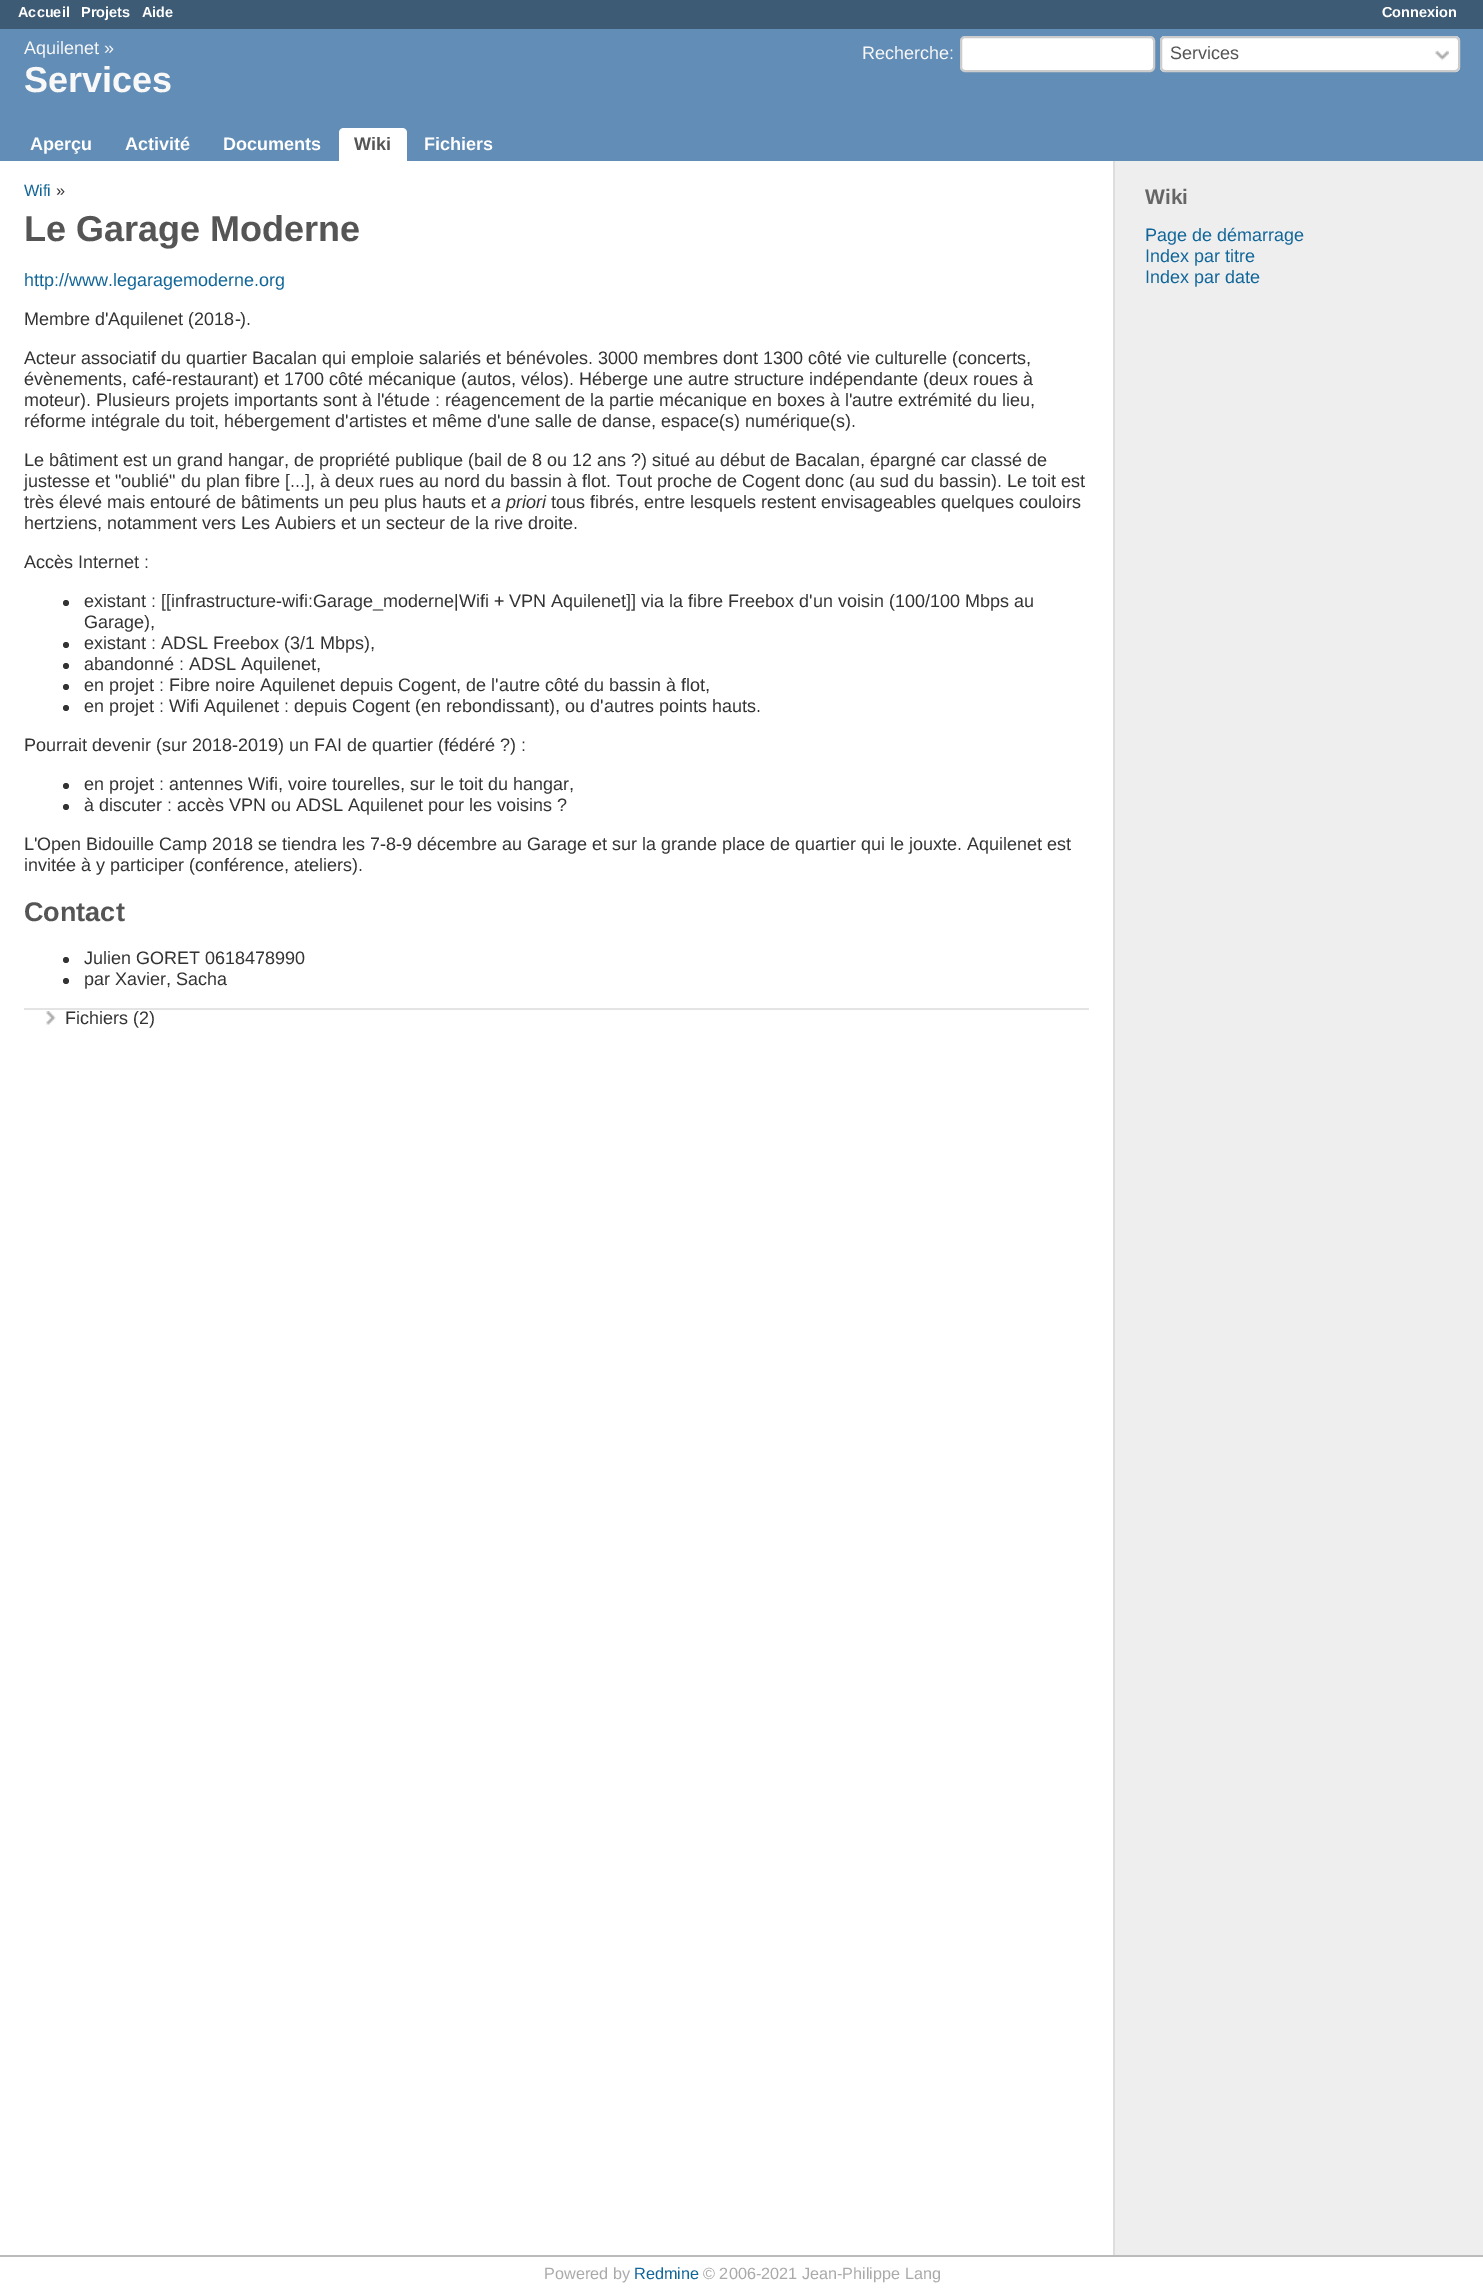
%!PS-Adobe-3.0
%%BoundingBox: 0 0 1483 2289
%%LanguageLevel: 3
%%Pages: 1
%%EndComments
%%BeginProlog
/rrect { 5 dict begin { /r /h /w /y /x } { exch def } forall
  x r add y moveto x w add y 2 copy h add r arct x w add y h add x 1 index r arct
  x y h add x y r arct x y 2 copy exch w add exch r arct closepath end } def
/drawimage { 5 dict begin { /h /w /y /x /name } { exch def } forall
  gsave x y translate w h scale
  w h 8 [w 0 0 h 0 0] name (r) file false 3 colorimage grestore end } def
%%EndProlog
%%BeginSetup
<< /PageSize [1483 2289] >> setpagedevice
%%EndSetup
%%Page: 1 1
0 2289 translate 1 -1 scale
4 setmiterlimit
1 setgray
0 0 1483 2289 rectfill
0.243 0.357 0.463 setrgbcolor
0 0 1483 29 rectfill
0.384 0.553 0.714 setrgbcolor
0 29 1483 132 rectfill
1 setgray
961 37 193 34 4 rrect gsave fill grestore
0.8 setgray
2 setlinewidth
stroke
1 setgray
1160 36 300 36 5 rrect fill
(images/1.raw) 1435 50 14 11 drawimage
0.8 setgray
1161 37 298 34 4 rrect stroke
1 setgray
newpath 344 128 moveto 402 128 lineto 405 128 407 130 407 133 curveto 407 161 lineto 339 161 lineto 339 133 lineto 339 130 341 128 344 128 curveto closepath fill
0.2 setgray
newpath 66 603 3 0 360 arc closepath fill
newpath 66 645 3 0 360 arc closepath fill
newpath 66 666 3 0 360 arc closepath fill
newpath 66 687 3 0 360 arc closepath fill
newpath 66 708 3 0 360 arc closepath fill
newpath 66 786 3 0 360 arc closepath fill
newpath 66 807 3 0 360 arc closepath fill
newpath 66 960 3 0 360 arc closepath fill
newpath 66 981 3 0 360 arc closepath fill
0.894 setgray
24 1008 1065 2 rectfill
(images/2.raw) 46 1011 10 14 drawimage
0.933 setgray
1115 161 368 2094 rectfill
0.867 setgray
1113 161 2 2094 rectfill
0.733 setgray
0 2255 1483 2 rectfill
/LiberationSans-Bold [14.5 0 0 -14.5 0 0] selectfont
1 setgray
18 17 moveto (Accueil) show
81 17 moveto (Projets) show
142 17 moveto (Aide) show
1382 17 moveto (Connexion) show
/LiberationSans-Regular [18 0 0 -18 0 0] selectfont
0.973 setgray
24 54 moveto (Aquilenet ») show
/LiberationSans-Bold [36 0 0 -36 0 0] selectfont
24 92 moveto (Services) show
/LiberationSans-Regular [18 0 0 -18 0 0] selectfont
862 59 moveto (Recherche:) show
0.333 setgray
1170 59 moveto (Services) show
/LiberationSans-Bold [18 0 0 -18 0 0] selectfont
1 setgray
30 150 moveto (Aperçu) show
125 150 moveto (Activité) show
223 150 moveto (Documents) show
0.333 setgray
354 150 moveto (Wiki) show
1 setgray
424 150 moveto (Fichiers) show
/LiberationSans-Regular [16.25 0 0 -16.25 0 0] selectfont
0.067 0.4 0.6 setrgbcolor
24 196 moveto (Wifi) show
0.2 setgray
56 196 moveto (») show
/LiberationSans-Bold [36 0 0 -36 0 0] selectfont
0.333 setgray
24 241 moveto (Le Garage Moderne) show
/LiberationSans-Regular [18 0 0 -18 0 0] selectfont
0.067 0.4 0.6 setrgbcolor
24 286 moveto (http://www.legaragemoderne.org) show
0.2 setgray
24 325 moveto (Membre d'Aquilenet \(2018-\).) show
24 364 moveto (Acteur associatif du quartier Bacalan qui emploie salariés et bénévoles. 3000 membres dont 1300 côté vie culturelle \(concerts,) show
24 385 moveto (évènements, café-restaurant\) et 1700 côté mécanique \(autos, vélos\). Héberge une autre structure indépendante \(deux roues à) show
24 406 moveto (moteur\). Plusieurs projets importants sont à l'étude : réagencement de la partie mécanique en boxes à l'autre extrémité du lieu,) show
24 427 moveto (réforme intégrale du toit, hébergement d'artistes et même d'une salle de danse, espace\(s\) numérique\(s\).) show
24 466 moveto (Le bâtiment est un grand hangar, de propriété publique \(bail de 8 ou 12 ans ?\) situé au début de Bacalan, épargné car classé de) show
24 487 moveto (justesse et "oublié" du plan fibre [...], à deux rues au nord du bassin à flot. Tout proche de Cogent donc \(au sud du bassin\). Le toit est) show
24 508 moveto (très élevé mais entouré de bâtiments un peu plus hauts et) show
/LiberationSans-Italic [18 0 0 -18 0 0] selectfont
491 508 moveto (a priori) show
/LiberationSans-Regular [18 0 0 -18 0 0] selectfont
551 508 moveto (tous fibrés, entre lesquels restent envisageables quelques couloirs) show
24 529 moveto (hertziens, notamment vers Les Aubiers et un secteur de la rive droite.) show
24 568 moveto (Accès Internet :) show
84 607 moveto (existant : [[infrastructure-wifi:Garage_moderne|Wifi + VPN Aquilenet]] via la fibre Freebox d'un voisin \(100/100 Mbps au) show
84 628 moveto (Garage\),) show
84 649 moveto (existant : ADSL Freebox \(3/1 Mbps\),) show
84 670 moveto (abandonné : ADSL Aquilenet,) show
84 691 moveto (en projet : Fibre noire Aquilenet depuis Cogent, de l'autre côté du bassin à flot,) show
84 712 moveto (en projet : Wifi Aquilenet : depuis Cogent \(en rebondissant\), ou d'autres points hauts.) show
24 751 moveto (Pourrait devenir \(sur 2018-2019\) un FAI de quartier \(fédéré ?\) :) show
84 790 moveto (en projet : antennes Wifi, voire tourelles, sur le toit du hangar,) show
84 811 moveto (à discuter : accès VPN ou ADSL Aquilenet pour les voisins ?) show
24 850 moveto (L'Open Bidouille Camp 2018 se tiendra les 7-8-9 décembre au Garage et sur la grande place de quartier qui le jouxte. Aquilenet est) show
24 871 moveto (invitée à y participer \(conférence, ateliers\).) show
/LiberationSans-Bold [27 0 0 -27 0 0] selectfont
0.333 setgray
24 921 moveto (Contact) show
/LiberationSans-Regular [18 0 0 -18 0 0] selectfont
0.2 setgray
84 964 moveto (Julien GORET 0618478990) show
84 985 moveto (par Xavier, Sacha) show
65 1024 moveto (Fichiers \(2\)) show
/LiberationSans-Bold [21 0 0 -21 0 0] selectfont
0.4 setgray
1145 204 moveto (Wiki) show
/LiberationSans-Regular [18 0 0 -18 0 0] selectfont
0.067 0.4 0.6 setrgbcolor
1145 241 moveto (Page de démarrage) show
1145 262 moveto (Index par titre) show
1145 283 moveto (Index par date) show
/LiberationSans-Regular [16.25 0 0 -16.25 0 0] selectfont
0.667 setgray
544 2279 moveto (Powered by) show
0.067 0.4 0.6 setrgbcolor
634 2279 moveto (Redmine) show
0.667 setgray
703 2279 moveto (© 2006-2021 Jean-Philippe Lang) show
showpage
%%EOF
